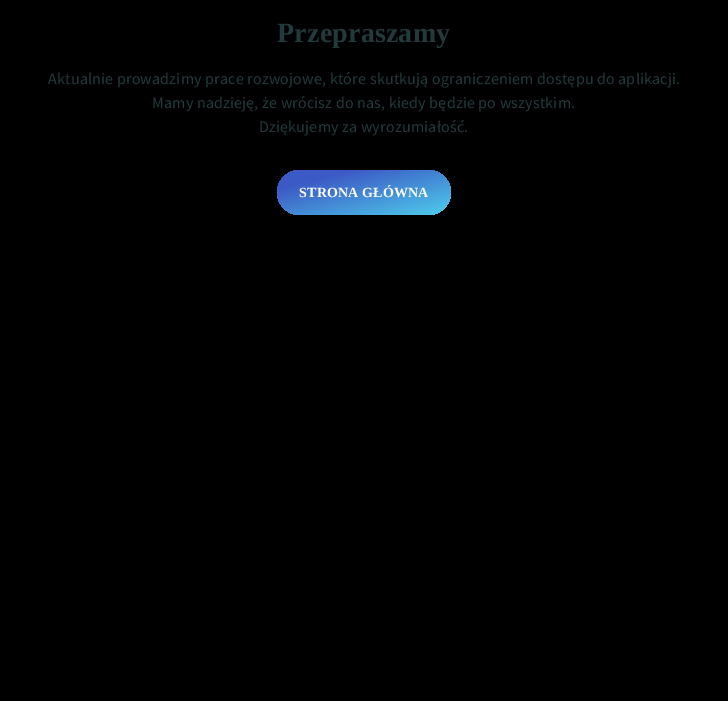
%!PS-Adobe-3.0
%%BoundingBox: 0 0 728 701
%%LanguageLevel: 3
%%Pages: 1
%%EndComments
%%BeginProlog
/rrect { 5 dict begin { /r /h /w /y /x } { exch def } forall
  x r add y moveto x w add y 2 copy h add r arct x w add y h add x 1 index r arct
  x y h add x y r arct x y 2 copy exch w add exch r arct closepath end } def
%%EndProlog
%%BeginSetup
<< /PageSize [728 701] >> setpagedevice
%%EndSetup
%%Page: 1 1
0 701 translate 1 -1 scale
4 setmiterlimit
0 setgray
0 0 728 701 rectfill
gsave 277 170 174 45 22.5 rrect clip newpath
<< /ShadingType 2 /ColorSpace /DeviceRGB /Coords [353 150 375 235] /Extend [true true] /Function << /FunctionType 3 /Domain [0 1] /Functions [<< /FunctionType 2 /Domain [0 1] /C0 [0.235 0.353 0.773] /C1 [0.235 0.353 0.773] /N 1 >> << /FunctionType 2 /Domain [0 1] /C0 [0.235 0.353 0.773] /C1 [0.302 0.769 0.914] /N 1 >> << /FunctionType 2 /Domain [0 1] /C0 [0.302 0.769 0.914] /C1 [0.302 0.769 0.914] /N 1 >>] /Bounds [0.22 0.93] /Encode [0 1 0 1 0 1] >> >> shfill grestore
/LiberationSerif-Bold [28 0 0 -28 0 0] selectfont
0.133 0.227 0.231 setrgbcolor
277 42 moveto 0.2 0 (Przepraszamy) ashow
/SourceSansPro-Regular [16 0 0 -16 0 0] selectfont
48 84 moveto 0.2 0 (Aktualnie prowadzimy prace rozwojowe, które skutkują ograniczeniem dostępu do aplikacji.) ashow
152 108 moveto 0.2 0 (Mamy nadzieję, że wrócisz do nas, kiedy będzie po wszystkim.) ashow
259 132 moveto 0.2 0 (Dziękujemy za wyrozumiałość.) ashow
/LiberationSerif-Bold [14 0 0 -14 0 0] selectfont
1 setgray
299 197 moveto 0.2 0 (STRONA GŁÓWNA) ashow
showpage
%%EOF
